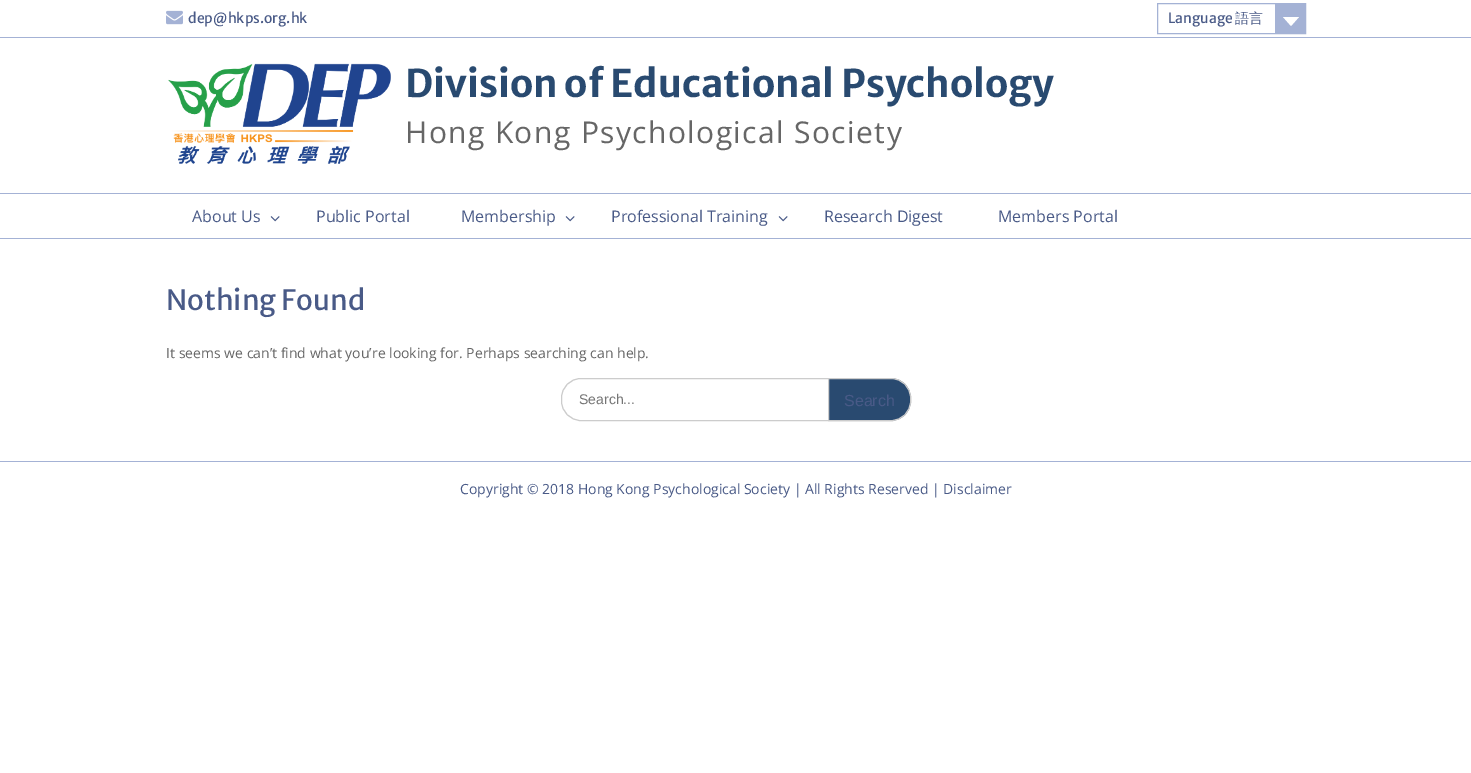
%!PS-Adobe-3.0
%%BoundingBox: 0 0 1471 773
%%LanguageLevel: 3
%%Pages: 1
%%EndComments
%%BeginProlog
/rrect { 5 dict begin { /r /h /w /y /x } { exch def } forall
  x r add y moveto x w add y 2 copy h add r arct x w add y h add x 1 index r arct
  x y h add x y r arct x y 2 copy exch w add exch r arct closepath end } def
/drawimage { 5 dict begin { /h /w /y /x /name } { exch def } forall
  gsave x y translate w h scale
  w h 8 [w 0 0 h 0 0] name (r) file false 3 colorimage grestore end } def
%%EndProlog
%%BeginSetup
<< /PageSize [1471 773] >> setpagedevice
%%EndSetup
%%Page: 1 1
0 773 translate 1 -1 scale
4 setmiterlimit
1 setgray
0 0 1471 773 rectfill
0.643 0.698 0.835 setrgbcolor
0 37 1471 1 rectfill
(images/1.raw) 166 10 17 15 drawimage
1157.5 3.5 148 30 rectstroke
1275 4 30 29 rectfill
1 setgray
newpath 1283 17 moveto 1299 17 lineto 1291 26 lineto closepath fill
(images/2.raw) 168 63 223 101 drawimage
0.643 0.698 0.835 setrgbcolor
0 193 1471 1 rectfill
0 238 1471 1 rectfill
(images/3.raw) 270 216 10 6 drawimage
(images/3.raw) 565 216 10 6 drawimage
(images/3.raw) 778 216 10 6 drawimage
0.8 setgray
561.5 378.5 349 42 19.5 rrect stroke
0.161 0.29 0.439 setrgbcolor
newpath 828.5 378.5 moveto 891 378.5 lineto 902 378.5 910.5 387 910.5 398 curveto 910.5 401 lineto 910.5 412 902 420.5 891 420.5 curveto 828.5 420.5 lineto closepath gsave fill grestore
0.8 setgray
stroke
0.643 0.698 0.835 setrgbcolor
0 461 1471 1 rectfill
/MerriweatherSans-Regular [14 0 0 -14 0 0] selectfont
0.286 0.353 0.529 setrgbcolor
188 23 moveto (dep@hkps.org.hk) show
1168 23 moveto (Language) show
/WenQuanYiZenHei-Medium [14 0 0 -14 0 0] selectfont
1235 23 moveto (語言) show
/MerriweatherSans-Bold [38 0 0 -38 0 0] selectfont
0.161 0.29 0.439 setrgbcolor
405 97 moveto (Division of Educational Psychology) show
/OpenSans-Regular [30 0 0 -30 0 0] selectfont
0.4 setgray
405 143 moveto 1.4 0 (Hong Kong Psychological Society) ashow
/OpenSans-Regular [16 0 0 -16 0 0] selectfont
0.286 0.353 0.529 setrgbcolor
192 222 moveto (About Us) show
316 222 moveto (Public Portal) show
461 222 moveto (Membership) show
611 222 moveto (Professional Training) show
824 222 moveto (Research Digest) show
998 222 moveto (Members Portal) show
/MerriweatherSans-Regular [28 0 0 -28 0 0] selectfont
166 310 moveto (Nothing Found) show
/OpenSans-Regular [14 0 0 -14 0 0] selectfont
0.4 setgray
166 358 moveto (It seems we can’t find what you’re looking for. Perhaps searching can help.) show
/LiberationSans-Regular [14 0 0 -14 0 0] selectfont
0.459 setgray
579 404 moveto (Search...) show
/LiberationSans-Regular [16 0 0 -16 0 0] selectfont
0.286 0.353 0.529 setrgbcolor
844 406 moveto (Search) show
/OpenSans-Regular [14 0 0 -14 0 0] selectfont
460 494 moveto (Copyright © 2018 Hong Kong Psychological Society | All Rights Reserved | Disclaimer) show
showpage
%%EOF
